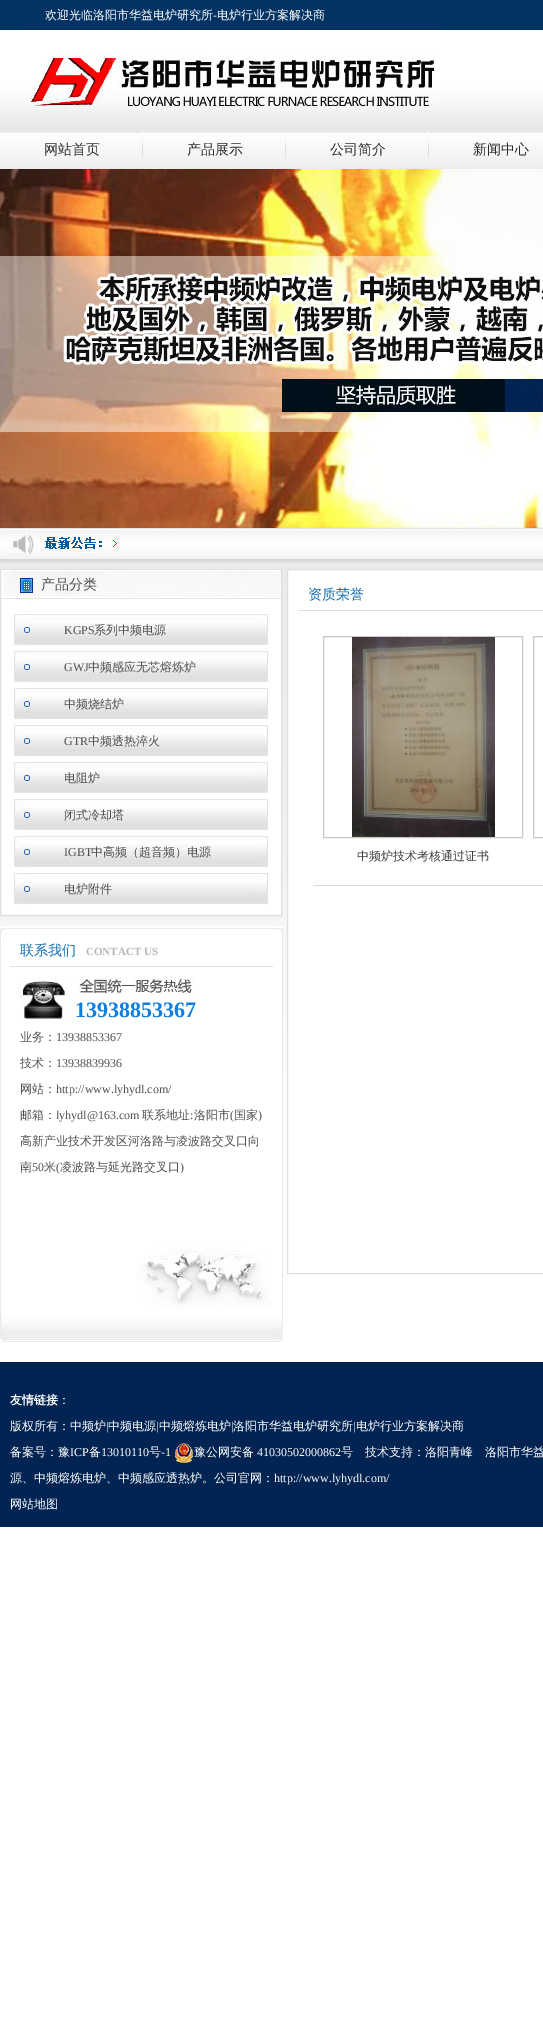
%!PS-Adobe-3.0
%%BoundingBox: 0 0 543 2034
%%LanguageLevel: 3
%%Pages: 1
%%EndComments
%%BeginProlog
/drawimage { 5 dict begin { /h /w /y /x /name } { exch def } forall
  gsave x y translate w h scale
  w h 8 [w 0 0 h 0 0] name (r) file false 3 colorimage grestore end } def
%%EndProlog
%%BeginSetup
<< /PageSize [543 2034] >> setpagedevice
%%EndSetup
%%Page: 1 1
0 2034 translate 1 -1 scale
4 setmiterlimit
1 setgray
0 0 543 2034 rectfill
(images/1.raw) 0 0 543 169 drawimage
(images/2.raw) 20 30 423 80 drawimage
(images/3.raw) 142 131 1 38 drawimage
(images/3.raw) 285 131 1 38 drawimage
(images/3.raw) 428 131 1 38 drawimage
(images/4.raw) 0 169 543 359 drawimage
(images/5.raw) 0 528 543 544 drawimage
(images/6.raw) 8 530 112 29 drawimage
1 599 280 316 rectfill
0.871 setgray
0.5 569.5 281 346 rectstroke
(images/7.raw) 1 570 280 29 drawimage
(images/8.raw) 14 614 255 32 drawimage
(images/8.raw) 14 651 255 32 drawimage
(images/8.raw) 14 688 255 32 drawimage
(images/8.raw) 14 725 255 32 drawimage
(images/8.raw) 14 762 255 32 drawimage
(images/8.raw) 14 799 255 32 drawimage
(images/8.raw) 14 836 255 32 drawimage
(images/8.raw) 14 873 255 32 drawimage
(images/9.raw) 0 926 283 416 drawimage
0.886 0.878 0.859 setrgbcolor
10 966 263 1 rectfill
(images/10.raw) 20 977 176 47 drawimage
1 setgray
288 570 255 502 rectfill
0.871 setgray
287.5 569.5 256 704 rectstroke
0.886 0.878 0.859 setrgbcolor
298 610 245 1 rectfill
0.859 setgray
313 885 230 1 rectfill
0.788 0.784 0.784 setrgbcolor
533.5 636.5 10 201 rectstroke
323.5 636.5 199 201 rectstroke
(images/11.raw) 352 637 143 200 drawimage
0.008 0.141 0.322 setrgbcolor
0 1362 543 165 rectfill
(images/12.raw) 175 1443 18 20 drawimage
/WenQuanYiZenHei-Medium [12 0 0 -12 0 0] selectfont
1 setgray
45 19 moveto (欢迎光临洛阳市华益电炉研究所) show
/LiberationSerif-Regular [12 0 0 -12 0 0] selectfont
213 19 moveto (-) show
/WenQuanYiZenHei-Medium [12 0 0 -12 0 0] selectfont
217 19 moveto (电炉行业方案解决商) show
/WenQuanYiZenHei-Medium [14 0 0 -14 0 0] selectfont
0.165 0.169 0.176 setrgbcolor
44 154 moveto (网站首页) show
187 154 moveto (产品展示) show
330 154 moveto (公司简介) show
473 154 moveto (新闻中心) show
0.314 setgray
41 589 moveto (产品分类) show
/LiberationSerif-Regular [12 0 0 -12 0 0] selectfont
64 634 moveto (KGPS) show
/WenQuanYiZenHei-Medium [12 0 0 -12 0 0] selectfont
94 634 moveto (系列中频电源) show
/LiberationSerif-Regular [12 0 0 -12 0 0] selectfont
64 671 moveto (GWJ) show
/WenQuanYiZenHei-Medium [12 0 0 -12 0 0] selectfont
88 671 moveto (中频感应无芯熔炼炉) show
64 708 moveto (中频烧结炉) show
/LiberationSerif-Regular [12 0 0 -12 0 0] selectfont
64 745 moveto (GTR) show
/WenQuanYiZenHei-Medium [12 0 0 -12 0 0] selectfont
88 745 moveto (中频透热淬火) show
64 782 moveto (电阻炉) show
64 819 moveto (闭式冷却塔) show
/LiberationSerif-Regular [12 0 0 -12 0 0] selectfont
64 856 moveto (IGBT) show
/WenQuanYiZenHei-Medium [12 0 0 -12 0 0] selectfont
91 856 moveto (中高频（超音频）电源) show
64 893 moveto (电炉附件) show
/WenQuanYiZenHei-Medium [14 0 0 -14 0 0] selectfont
0.051 0.427 0.71 setrgbcolor
20 955 moveto (联系我们) show
/LiberationSerif-Bold [11 0 0 -11 0 0] selectfont
0.745 0.71 0.71 setrgbcolor
86 955 moveto (CONTACT US) show
/LiberationSerif-Bold [22 0 0 -22 0 0] selectfont
0.063 0.494 0.875 setrgbcolor
75 1017 moveto (13938853367) show
/WenQuanYiZenHei-Medium [12 0 0 -12 0 0] selectfont
0.314 setgray
20 1041 moveto (业务：) show
/LiberationSerif-Regular [12 0 0 -12 0 0] selectfont
56 1041 moveto (13938853367) show
/WenQuanYiZenHei-Medium [12 0 0 -12 0 0] selectfont
20 1067 moveto (技术：) show
/LiberationSerif-Regular [12 0 0 -12 0 0] selectfont
56 1067 moveto (13938839936) show
/WenQuanYiZenHei-Medium [12 0 0 -12 0 0] selectfont
20 1093 moveto (网站：) show
/LiberationSerif-Regular [12 0 0 -12 0 0] selectfont
56 1093 moveto (http://www.lyhydl.com/) show
/WenQuanYiZenHei-Medium [12 0 0 -12 0 0] selectfont
20 1119 moveto (邮箱：) show
/LiberationSerif-Regular [12 0 0 -12 0 0] selectfont
56 1119 moveto (lyhydl@163.com) show
/WenQuanYiZenHei-Medium [12 0 0 -12 0 0] selectfont
142 1119 moveto (联系地址 洛阳市) show
/LiberationSerif-Regular [12 0 0 -12 0 0] selectfont
230 1119 moveto (\() show
/WenQuanYiZenHei-Medium [12 0 0 -12 0 0] selectfont
234 1119 moveto (国家) show
/LiberationSerif-Regular [12 0 0 -12 0 0] selectfont
258 1119 moveto (\)) show
190 1119 moveto (:) show
/WenQuanYiZenHei-Medium [12 0 0 -12 0 0] selectfont
20 1145 moveto (高新产业技术开发区河洛路与凌波路交叉口向) show
20 1171 moveto (南) show
/LiberationSerif-Regular [12 0 0 -12 0 0] selectfont
32 1171 moveto (50) show
/WenQuanYiZenHei-Medium [12 0 0 -12 0 0] selectfont
44 1171 moveto (米) show
/LiberationSerif-Regular [12 0 0 -12 0 0] selectfont
56 1171 moveto (\() show
/WenQuanYiZenHei-Medium [12 0 0 -12 0 0] selectfont
60 1171 moveto (凌波路与延光路交叉口) show
/LiberationSerif-Regular [12 0 0 -12 0 0] selectfont
180 1171 moveto (\)) show
/WenQuanYiZenHei-Medium [14 0 0 -14 0 0] selectfont
0.051 0.427 0.71 setrgbcolor
308 599 moveto (资质荣誉) show
/WenQuanYiZenHei-Medium [12 0 0 -12 0 0] selectfont
0.239 setgray
357 860 moveto (中频炉技术考核通过证书) show
/WenQuanYiZenHei-Bold [12 0 0 -12 0 0] selectfont
1 setgray
10 1404 moveto (友情链接) show
/WenQuanYiZenHei-Medium [12 0 0 -12 0 0] selectfont
58 1404 moveto (：) show
10 1430 moveto (版权所有：中频炉) show
/LiberationSerif-Regular [12 0 0 -12 0 0] selectfont
106 1430 moveto (|) show
/WenQuanYiZenHei-Medium [12 0 0 -12 0 0] selectfont
108 1430 moveto (中频电源) show
/LiberationSerif-Regular [12 0 0 -12 0 0] selectfont
156 1430 moveto (|) show
/WenQuanYiZenHei-Medium [12 0 0 -12 0 0] selectfont
159 1430 moveto (中频熔炼电炉) show
/LiberationSerif-Regular [12 0 0 -12 0 0] selectfont
231 1430 moveto (|) show
/WenQuanYiZenHei-Medium [12 0 0 -12 0 0] selectfont
233 1430 moveto (洛阳市华益电炉研究所) show
/LiberationSerif-Regular [12 0 0 -12 0 0] selectfont
353 1430 moveto (|) show
/WenQuanYiZenHei-Medium [12 0 0 -12 0 0] selectfont
356 1430 moveto (电炉行业方案解决商) show
10 1456 moveto (备案号：豫) show
/LiberationSerif-Regular [12 0 0 -12 0 0] selectfont
70 1456 moveto (ICP) show
/WenQuanYiZenHei-Medium [12 0 0 -12 0 0] selectfont
89 1456 moveto (备) show
/LiberationSerif-Regular [12 0 0 -12 0 0] selectfont
101 1456 moveto (13010110) show
/WenQuanYiZenHei-Medium [12 0 0 -12 0 0] selectfont
149 1456 moveto (号) show
/LiberationSerif-Regular [12 0 0 -12 0 0] selectfont
161 1456 moveto (-1) show
/WenQuanYiZenHei-Medium [12 0 0 -12 0 0] selectfont
194 1456 moveto (豫公网安备) show
/LiberationSerif-Regular [12 0 0 -12 0 0] selectfont
257 1456 moveto (41030502000862) show
/WenQuanYiZenHei-Medium [12 0 0 -12 0 0] selectfont
341 1456 moveto (号) show
365 1456 moveto (技术支持：洛阳青峰) show
485 1456 moveto (洛阳市华益) show
10 1482 moveto (源、中频熔炼电炉、中频感应透热炉。公司官网：) show
/LiberationSerif-Regular [12 0 0 -12 0 0] selectfont
274 1482 moveto (http://www.lyhydl.com/) show
/WenQuanYiZenHei-Medium [12 0 0 -12 0 0] selectfont
10 1508 moveto (网站地图) show
showpage
%%EOF
